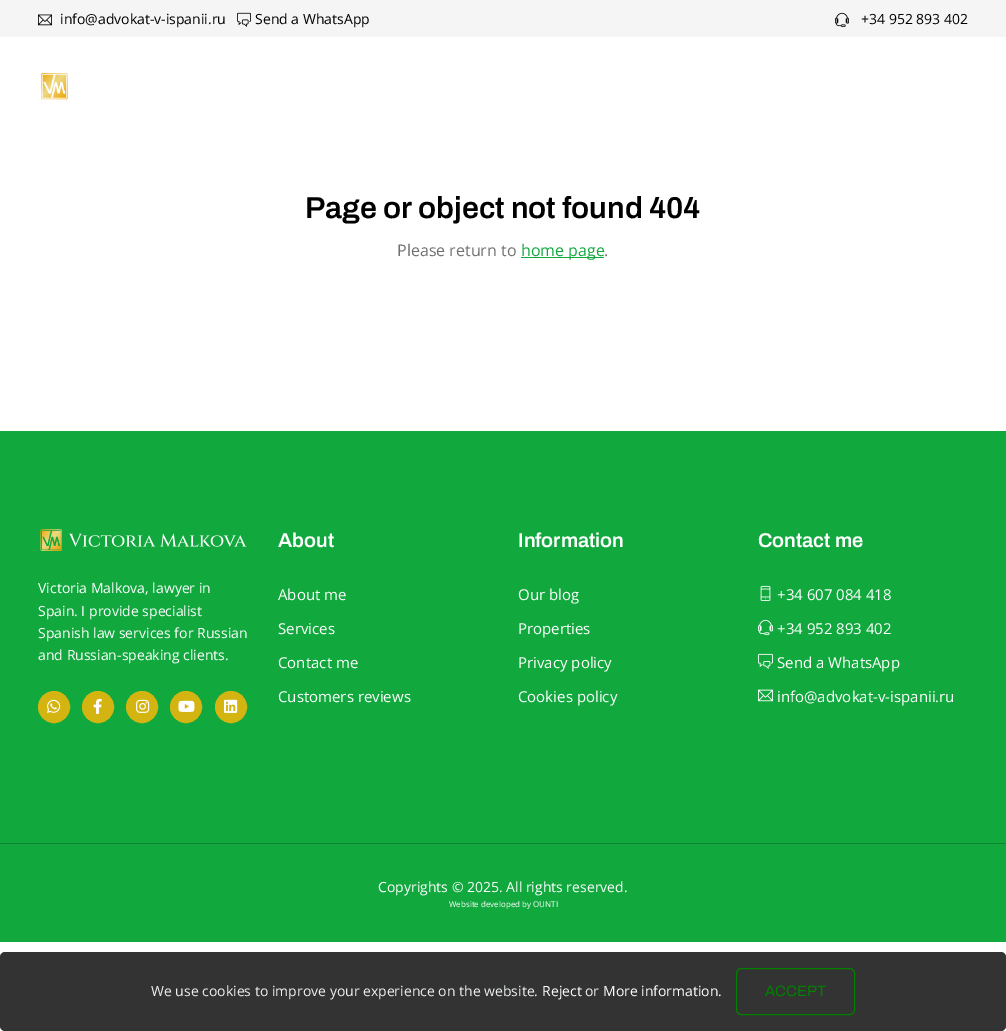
%!PS-Adobe-3.0
%%BoundingBox: 0 0 1006 1031
%%LanguageLevel: 3
%%Pages: 1
%%EndComments
%%BeginProlog
/rrect { 5 dict begin { /r /h /w /y /x } { exch def } forall
  x r add y moveto x w add y 2 copy h add r arct x w add y h add x 1 index r arct
  x y h add x y r arct x y 2 copy exch w add exch r arct closepath end } def
/drawimage { 5 dict begin { /h /w /y /x /name } { exch def } forall
  gsave x y translate w h scale
  w h 8 [w 0 0 h 0 0] name (r) file false 3 colorimage grestore end } def
%%EndProlog
%%BeginSetup
<< /PageSize [1006 1031] >> setpagedevice
%%EndSetup
%%Page: 1 1
0 1031 translate 1 -1 scale
4 setmiterlimit
1 setgray
0 0 1006 1031 rectfill
0.961 setgray
0 0 1006 37 rectfill
(images/1.raw) 38 14 14 12 drawimage
(images/2.raw) 237 12 14 15 drawimage
(images/3.raw) 835 12 14 15 drawimage
(images/4.raw) 40 73 28 27 drawimage
0.067 0.663 0.243 setrgbcolor
521 257 83 1 rectfill
0 431 1006 412 rectfill
(images/5.raw) 40 529 207 22 drawimage
0.827 0.706 0.067 setrgbcolor
newpath 54 707 15.5 0 360 arc closepath gsave fill grestore
stroke
(images/6.raw) 47 699 14 14 drawimage
newpath 98 707 15.5 0 360 arc closepath gsave fill grestore
stroke
(images/7.raw) 93 698 9 16 drawimage
newpath 142 707 15.5 0 360 arc closepath gsave fill grestore
stroke
(images/8.raw) 136 699 14 14 drawimage
newpath 186 707 15.5 0 360 arc closepath gsave fill grestore
stroke
(images/9.raw) 178 700 17 12 drawimage
newpath 231 707 15.5 0 360 arc closepath gsave fill grestore
stroke
(images/10.raw) 224 699 14 14 drawimage
(images/11.raw) 760 585 11 16 drawimage
(images/12.raw) 758 619 15 16 drawimage
(images/13.raw) 758 653 15 16 drawimage
(images/14.raw) 758 689 15 13 drawimage
0.067 0.663 0.243 setrgbcolor
0 844 1006 98 rectfill
0.047 0.522 0.184 setrgbcolor
0 843 1006 1 rectfill
0.2 setgray
0 952 1006 79 5 rrect fill
0 0.502 0 setrgbcolor
736.5 968.5 118 46 4.5 rrect stroke
/OpenSans-Regular [14 0 0 -14 0 0] selectfont
0 setgray
60 24 moveto (info@advokat-v-ispanii.ru) show
255 24 moveto (Send a WhatsApp) show
861 24 moveto (+34 952 893 402) show
/Archivo-SemiBold [30.25 0 0 -30.25 0 0] selectfont
305 218 moveto (Page or object not found 404) show
/OpenSans-Regular [16 0 0 -16 0 0] selectfont
0.439 setgray
397 256 moveto (Please return to) show
0.067 0.663 0.243 setrgbcolor
521 256 moveto (home page) show
0.439 setgray
604 256 moveto (.) show
/OpenSans-Regular [14 0 0 -14 0 0] selectfont
1 setgray
38 593 moveto (Victoria Malkova, lawyer in) show
38 616 moveto (Spain. I provide specialist) show
38 638 moveto (Spanish law services for Russian) show
38 660 moveto (and Russian-speaking clients.) show
/Archivo-SemiBold [20 0 0 -20 0 0] selectfont
278 547 moveto (About) show
/OpenSans-Regular [15 0 0 -15 0 0] selectfont
278 600 moveto (About me) show
278 634 moveto (Services) show
278 668 moveto (Contact me) show
278 702 moveto (Customers reviews) show
/Archivo-SemiBold [20 0 0 -20 0 0] selectfont
518 547 moveto (Information) show
/OpenSans-Regular [15 0 0 -15 0 0] selectfont
518 600 moveto (Our blog) show
518 634 moveto (Properties) show
518 668 moveto (Privacy policy) show
518 702 moveto (Cookies policy) show
/Archivo-SemiBold [20 0 0 -20 0 0] selectfont
758 547 moveto (Contact me) show
/OpenSans-Regular [15 0 0 -15 0 0] selectfont
777 600 moveto (+34 607 084 418) show
777 634 moveto (+34 952 893 402) show
777 668 moveto (Send a WhatsApp) show
777 702 moveto (info@advokat-v-ispanii.ru) show
/OpenSans-Regular [14 0 0 -14 0 0] selectfont
378 892 moveto (Copyrights © 2025. All rights reserved.) show
/OpenSans-Regular [8 0 0 -8 0 0] selectfont
449 907 moveto (Website developed by OUNTI) show
/OpenSans-Regular [14 0 0 -14 0 0] selectfont
0.925 0.941 0.945 setrgbcolor
151 996 moveto (We use cookies to improve your experience on the website.) show
1 setgray
542 996 moveto (Reject) show
0.925 0.941 0.945 setrgbcolor
585 996 moveto (or) show
1 setgray
603 996 moveto (More information.) show
/Archivo-Regular [15 0 0 -15 0 0] selectfont
0 0.502 0 setrgbcolor
765 996 moveto (ACCEPT) show
showpage
%%EOF
